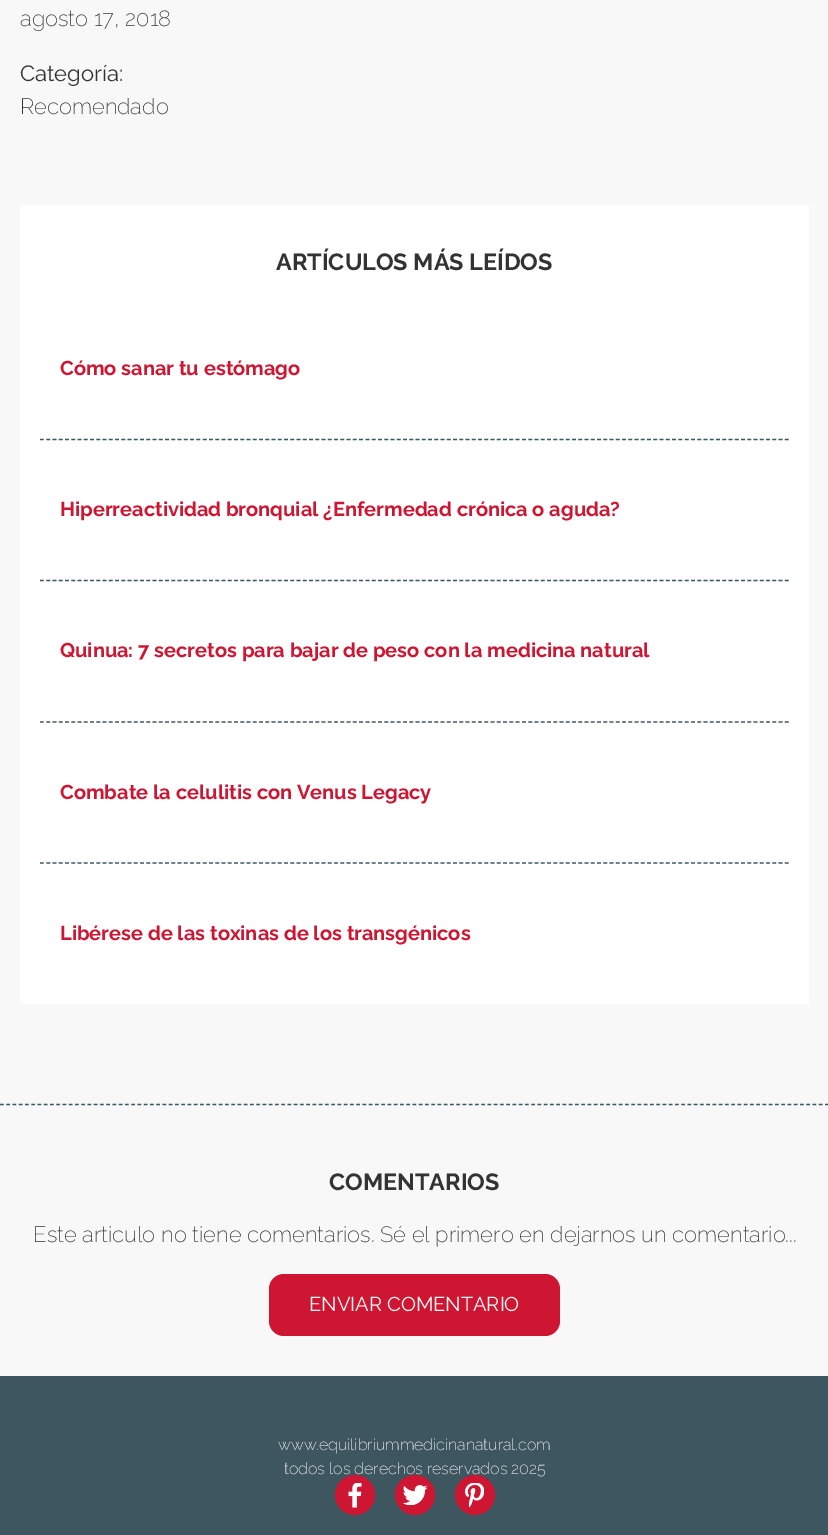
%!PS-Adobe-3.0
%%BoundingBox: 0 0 828 1535
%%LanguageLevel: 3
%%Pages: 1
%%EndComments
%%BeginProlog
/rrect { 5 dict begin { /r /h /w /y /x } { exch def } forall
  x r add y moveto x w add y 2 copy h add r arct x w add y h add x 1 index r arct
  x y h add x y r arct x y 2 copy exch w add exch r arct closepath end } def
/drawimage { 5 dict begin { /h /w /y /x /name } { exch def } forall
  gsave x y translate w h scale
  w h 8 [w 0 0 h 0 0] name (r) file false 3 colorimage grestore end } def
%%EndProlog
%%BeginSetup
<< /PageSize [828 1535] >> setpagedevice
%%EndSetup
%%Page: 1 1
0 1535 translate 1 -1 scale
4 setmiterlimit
1 setgray
0 0 828 1535 rectfill
(images/1.raw) 0 0 828 1376 drawimage
20 205 789 799 rectfill
0.243 0.337 0.376 setrgbcolor
1.2 setlinewidth
[3.75 2.51] 0 setdash
newpath 40 439.5 moveto 789 439.5 lineto stroke
newpath 40 580.5 moveto 789 580.5 lineto stroke
newpath 40 722 moveto 789 722 lineto stroke
newpath 40 863 moveto 789 863 lineto stroke
[3.75 2.5] 0 setdash
newpath 0 1104.5 moveto 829 1104.5 lineto stroke
0.808 0.082 0.192 setrgbcolor
269 1274 291 62 15 rrect fill
0.243 0.337 0.376 setrgbcolor
0 1376 828 159 rectfill
/Raleway-ExtraLight [22 0 0 -22 0 0] selectfont
0.2 setgray
20 26 moveto (agosto 17, 2018) show
/Raleway-Regular [22 0 0 -22 0 0] selectfont
20 81 moveto (Categoría:) show
/Raleway-ExtraLight [22 0 0 -22 0 0] selectfont
20 114 moveto (Recomendado) show
/Raleway-Bold [23.4 0 0 -23.4 0 0] selectfont
276 270 moveto (ARTÍCULOS MÁS LEÍDOS) show
/Raleway-Bold [20 0 0 -20 0 0] selectfont
0.808 0.082 0.192 setrgbcolor
60 375 moveto (Cómo sanar tu estómago) show
60 516 moveto (Hiperreactividad bronquial ¿Enfermedad crónica o aguda?) show
60 657 moveto (Quinua: 7 secretos para bajar de peso con la medicina natural) show
60 799 moveto (Combate la celulitis con Venus Legacy) show
60 940 moveto (Libérese de las toxinas de los transgénicos) show
/Raleway-Bold [23.4 0 0 -23.4 0 0] selectfont
0.2 setgray
329 1190 moveto (COMENTARIOS) show
/Raleway-ExtraLight [22 0 0 -22 0 0] selectfont
33 1242 moveto (Este articulo no tiene comentarios. Sé el primero en dejarnos un comentario...) show
/Raleway-Regular [20 0 0 -20 0 0] selectfont
1 setgray
309 1311 moveto (ENVIAR COMENTARIO) show
/Raleway-ExtraLight [16 0 0 -16 0 0] selectfont
278 1450 moveto (www.equilibriummedicinanatural.com) show
284 1474 moveto (todos los derechos reservados 2025) show
0.808 0.082 0.192 setrgbcolor
newpath 475 1495 20 0 360 arc closepath fill
(images/4.raw) 465 1483 19 25 drawimage
newpath 415 1495 20 0 360 arc closepath fill
(images/3.raw) 403 1485 25 20 drawimage
newpath 355 1495 20 0 360 arc closepath fill
(images/2.raw) 348 1483 14 25 drawimage
showpage
%%EOF
